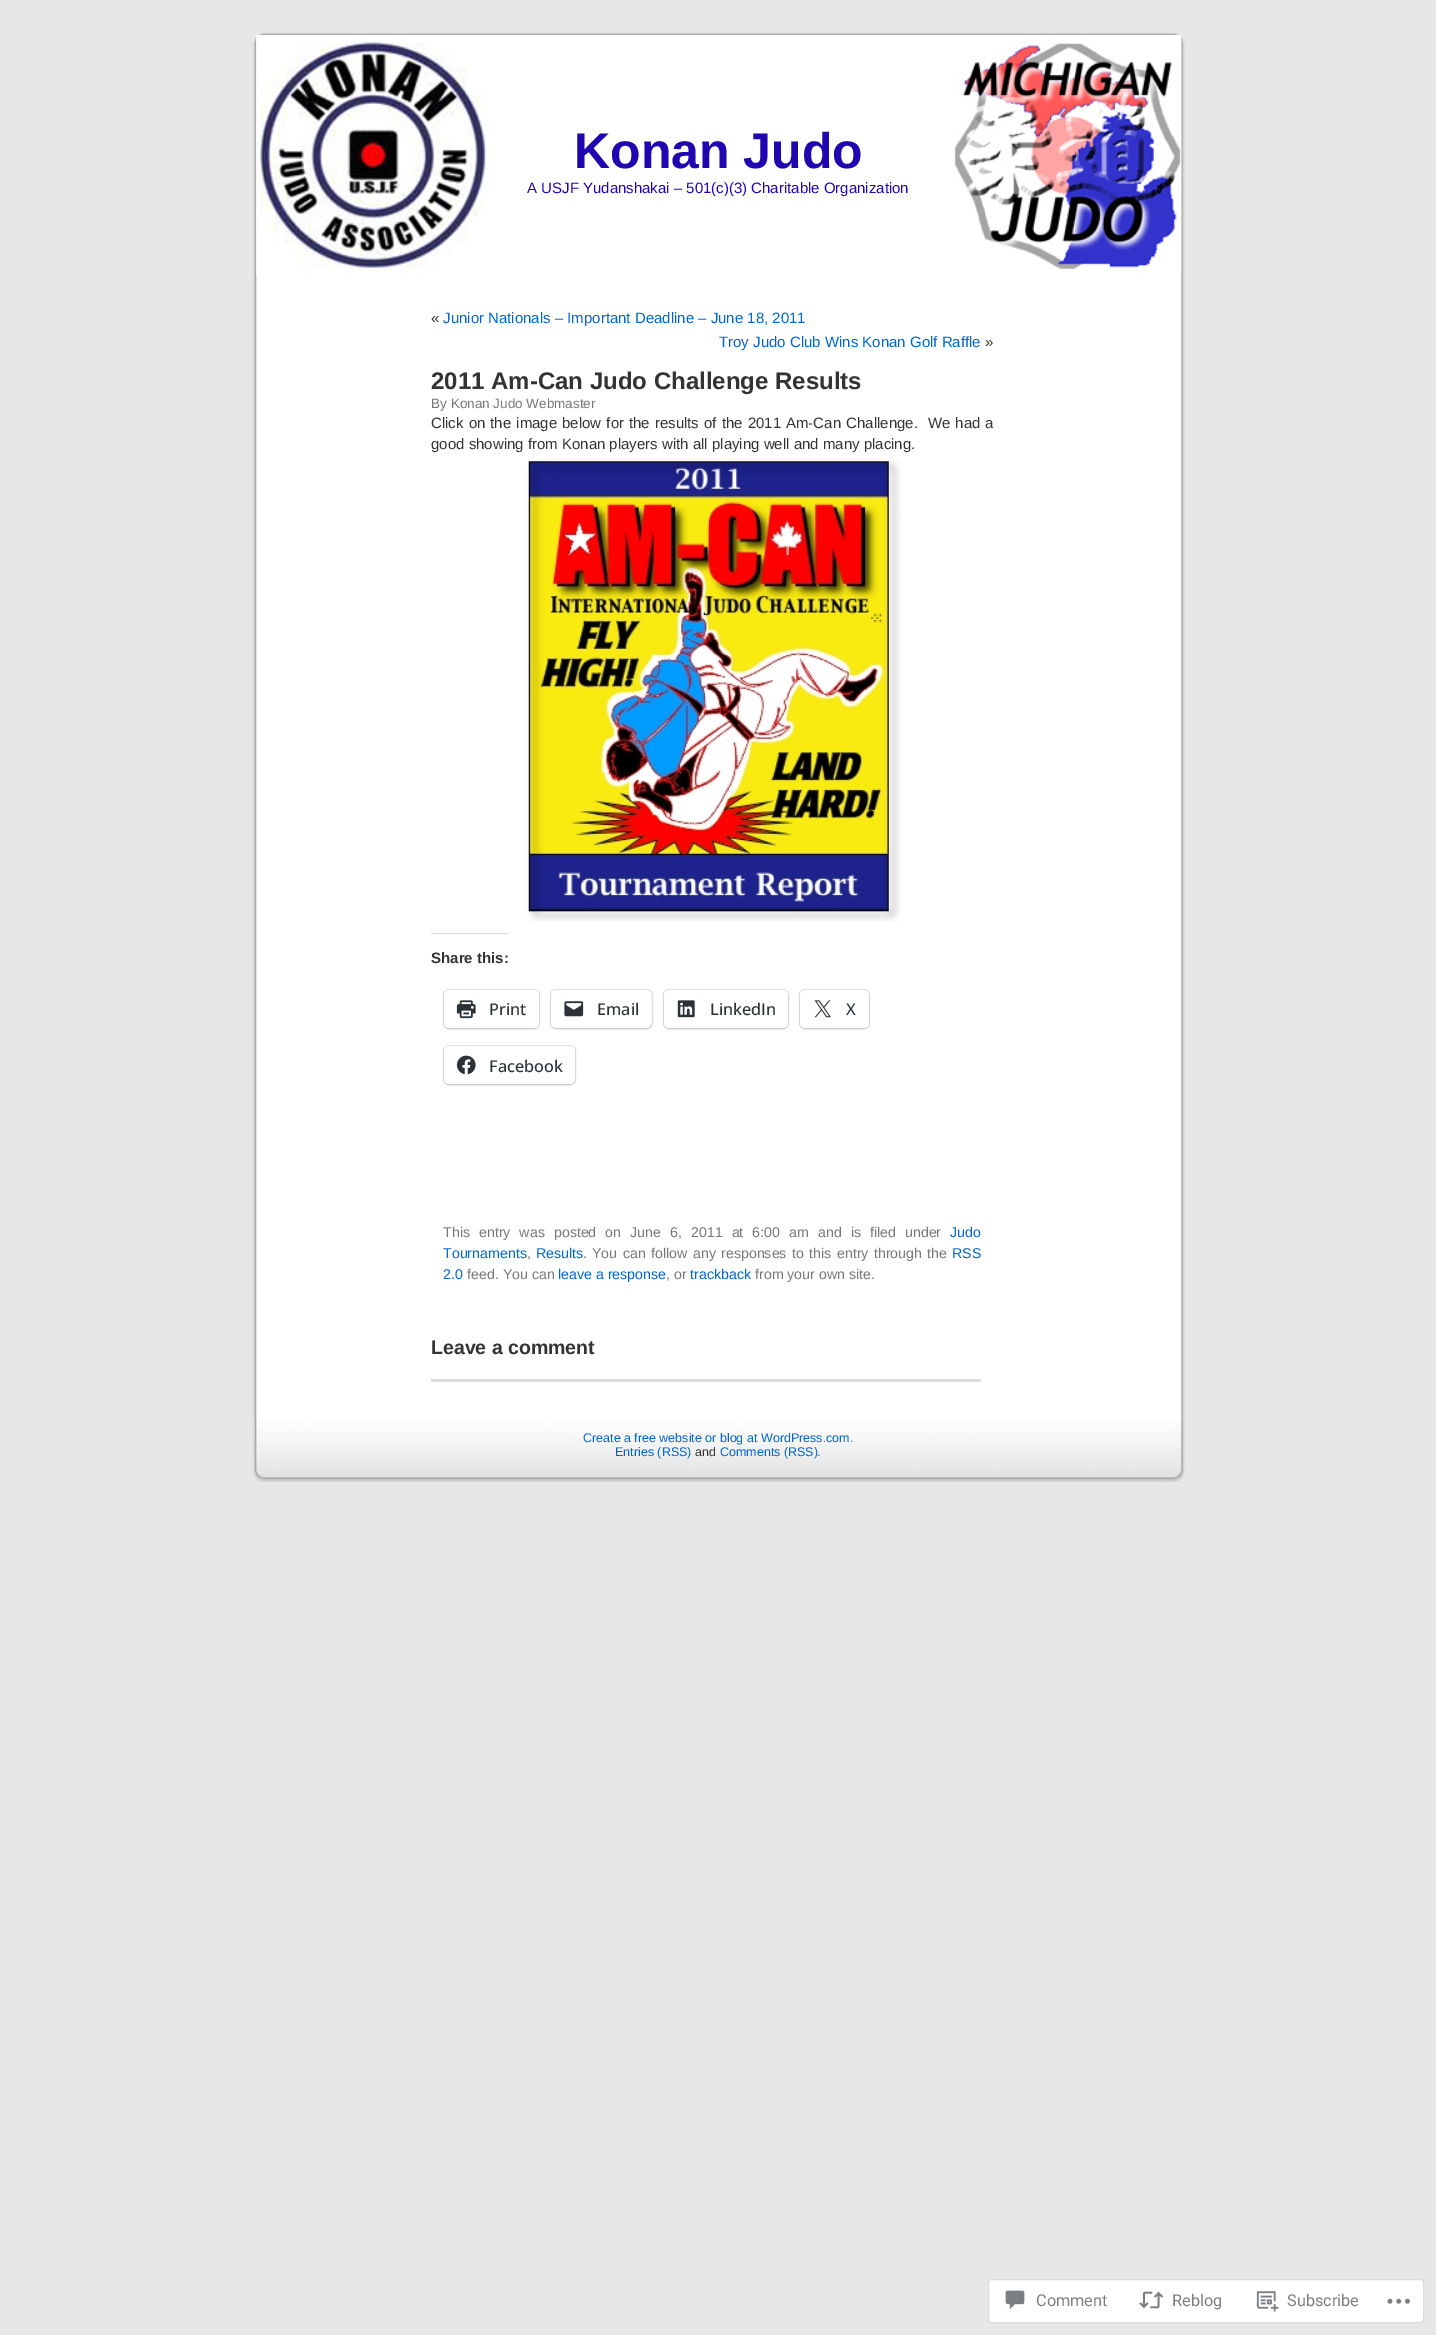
%!PS-Adobe-3.0
%%BoundingBox: 0 0 1436 2335
%%LanguageLevel: 3
%%Pages: 1
%%EndComments
%%BeginProlog
/setalpha { dup .setfillconstantalpha .setstrokeconstantalpha } def
/rrect { 5 dict begin { /r /h /w /y /x } { exch def } forall
  x r add y moveto x w add y 2 copy h add r arct x w add y h add x 1 index r arct
  x y h add x y r arct x y 2 copy exch w add exch r arct closepath end } def
/softshadow { 12 dict begin { /a /b /q /h /w /y /x } { exch def } forall gsave /was 0 def
  9 -2 -9 { dup b mul 4 div /e exch def 1 sub .425 mul 2.718 exch exp 1 add a .99 .min exch div /now exch def
    1 1 now sub 1 was sub div sub setalpha /was now def
    w h .min e 2 mul add 0 gt { x e sub y e sub w e 2 mul add h e 2 mul add
      q e add b .6 mul add w h .min 2 div e add .min 0 .max rrect fill } if } for grestore end } def
/drawimage { 5 dict begin { /h /w /y /x /name } { exch def } forall
  gsave x y translate w h scale
  w h 8 [w 0 0 h 0 0] name (r) file false 3 colorimage grestore end } def
%%EndProlog
%%BeginSetup
<< /PageSize [1436 2335] /PageUsesTransparency true >> setpagedevice
%%EndSetup
%%Page: 1 1
0 .pushpdf14devicefilter
0 2335 translate 1 -1 scale
4 setmiterlimit
0.906 setgray
0 0 1436 2335 rectfill
(images/1.raw) 252 275 933 1209 drawimage
(images/2.raw) 252 25 933 250 drawimage
(images/3.raw) 256 35 926 240 drawimage
(images/4.raw) 527 458 375 464 drawimage
0.863 0.863 0.871 setrgbcolor
431 933 78 1 rectfill
0.878 setgray
443.5 989.5 96 39 5.5 rrect stroke
0 setgray
444 991 95 38 5 1 0.12 softshadow
1 setgray
444 990 95 38 5 rrect fill
(images/5.raw) 456 1000 20 19 drawimage
0.878 setgray
550.5 989.5 102 39 5.5 rrect stroke
0 setgray
551 991 100 38 5 1 0.12 softshadow
1 setgray
551 990 100 38 5 rrect fill
(images/6.raw) 564 1001 20 16 drawimage
0.878 setgray
663.5 989.5 125 39 5.5 rrect stroke
0 setgray
664 991 124 38 5 1 0.12 softshadow
1 setgray
664 990 124 38 5 rrect fill
(images/7.raw) 677 1000 18 18 drawimage
0.878 setgray
799.5 989.5 70 39 5.5 rrect stroke
0 setgray
800 991 69 38 5 1 0.12 softshadow
1 setgray
800 990 69 38 5 rrect fill
(images/8.raw) 814 1000 17 18 drawimage
0.878 setgray
443.5 1045.5 132 39 5.5 rrect stroke
0 setgray
444 1048 131 37 5 1 0.12 softshadow
1 setgray
444 1046 131 38 5 rrect fill
(images/9.raw) 456 1055 20 20 drawimage
0.863 0.863 0.871 setrgbcolor
431 1379 550 3 rectfill
(images/10.raw) 252 1421 933 63 drawimage
1 setgray
988.5 2279.5 435 43 3.5 rrect gsave fill grestore
0.863 0.863 0.871 setrgbcolor
stroke
(images/11.raw) 1005 2290 20 20 drawimage
(images/12.raw) 1139 2291 25 18 drawimage
(images/13.raw) 1256 2291 23 21 drawimage
(images/14.raw) 1387 2298 23 6 drawimage
/LiberationSans-Bold [50 0 0 -50 0 0] selectfont
0.125 0.024 0.694 setrgbcolor
574 168 moveto (Konan Judo) show
/LiberationSans-Regular [15 0 0 -15 0 0] selectfont
527 193 moveto (A USJF Yudanshakai – 501\(c\)\(3\) Charitable Organization) show
0.2 setgray
431 323 moveto («) show
0 0.4 0.8 setrgbcolor
443 323 moveto (Junior Nationals – Important Deadline – June 18, 2011) show
719 347 moveto (Troy Judo Club Wins Konan Golf Raffle) show
0.2 setgray
985 347 moveto (») show
/LiberationSans-Bold [24 0 0 -24 0 0] selectfont
431 389 moveto (2011 Am-Can Judo Challenge Results) show
/LiberationSans-Regular [13.5 0 0 -13.5 0 0] selectfont
0.467 setgray
431 408 moveto (By Konan Judo Webmaster) show
/LiberationSans-Regular [15 0 0 -15 0 0] selectfont
0.2 setgray
431 428 moveto 0.9 0 32 (Click on the image below for the results of the 2011 Am-Can Challenge.  We had a) widthshow
431 449 moveto (good showing from Konan players with all playing well and many placing.) show
/LiberationSans-Bold [15 0 0 -15 0 0] selectfont
431 963 moveto (Share this:) show
/OpenSans-Medium [16.25 0 0 -16.25 0 0] selectfont
0.173 0.2 0.22 setrgbcolor
489 1015 moveto (Print) show
597 1015 moveto (Email) show
710 1015 moveto (LinkedIn) show
846 1015 moveto (X) show
489 1072 moveto (Facebook) show
/LiberationSans-Regular [14.2 0 0 -14.2 0 0] selectfont
0.467 setgray
443 1237 moveto 5.1 0 32 (This entry was posted on June 6, 2011 at 6:00 am and is filed under) widthshow
0 0.4 0.8 setrgbcolor
950 1237 moveto (Judo) show
443 1258 moveto (Tournaments) show
0.467 setgray
527 1258 moveto (,) show
0 0.4 0.8 setrgbcolor
536 1258 moveto (Results) show
0.467 setgray
583 1258 moveto (.) show
592 1258 moveto 1.5 0 32 (You can follow any responses to this entry through the) widthshow
0 0.4 0.8 setrgbcolor
952 1258 moveto (RSS) show
443 1279 moveto (2.0) show
0.467 setgray
467 1279 moveto (feed. You can) show
0 0.4 0.8 setrgbcolor
558 1279 moveto (leave a response) show
0.467 setgray
666 1279 moveto (, or) show
0 0.4 0.8 setrgbcolor
690 1279 moveto (trackback) show
0.467 setgray
755 1279 moveto (from your own site.) show
/LiberationSans-Bold [19.5 0 0 -19.5 0 0] selectfont
0.2 setgray
431 1354 moveto (Leave a comment) show
/LiberationSans-Regular [12.5 0 0 -12.5 0 0] selectfont
0 0.4 0.8 setrgbcolor
583 1442 moveto (Create a free website or blog at WordPress.com.) show
615 1456 moveto (Entries \(RSS\)) show
0.2 setgray
695 1456 moveto (and) show
0 0.4 0.8 setrgbcolor
720 1456 moveto (Comments \(RSS\)) show
0.2 setgray
817 1456 moveto (.) show
/Roboto-Regular [16.25 0 0 -16.25 0 0] selectfont
0.478 0.494 0.518 setrgbcolor
1036 2306 moveto (Comment) show
1172 2306 moveto (Reblog) show
1287 2306 moveto (Subscribe) show
.poppdf14devicefilter showpage
%%EOF
